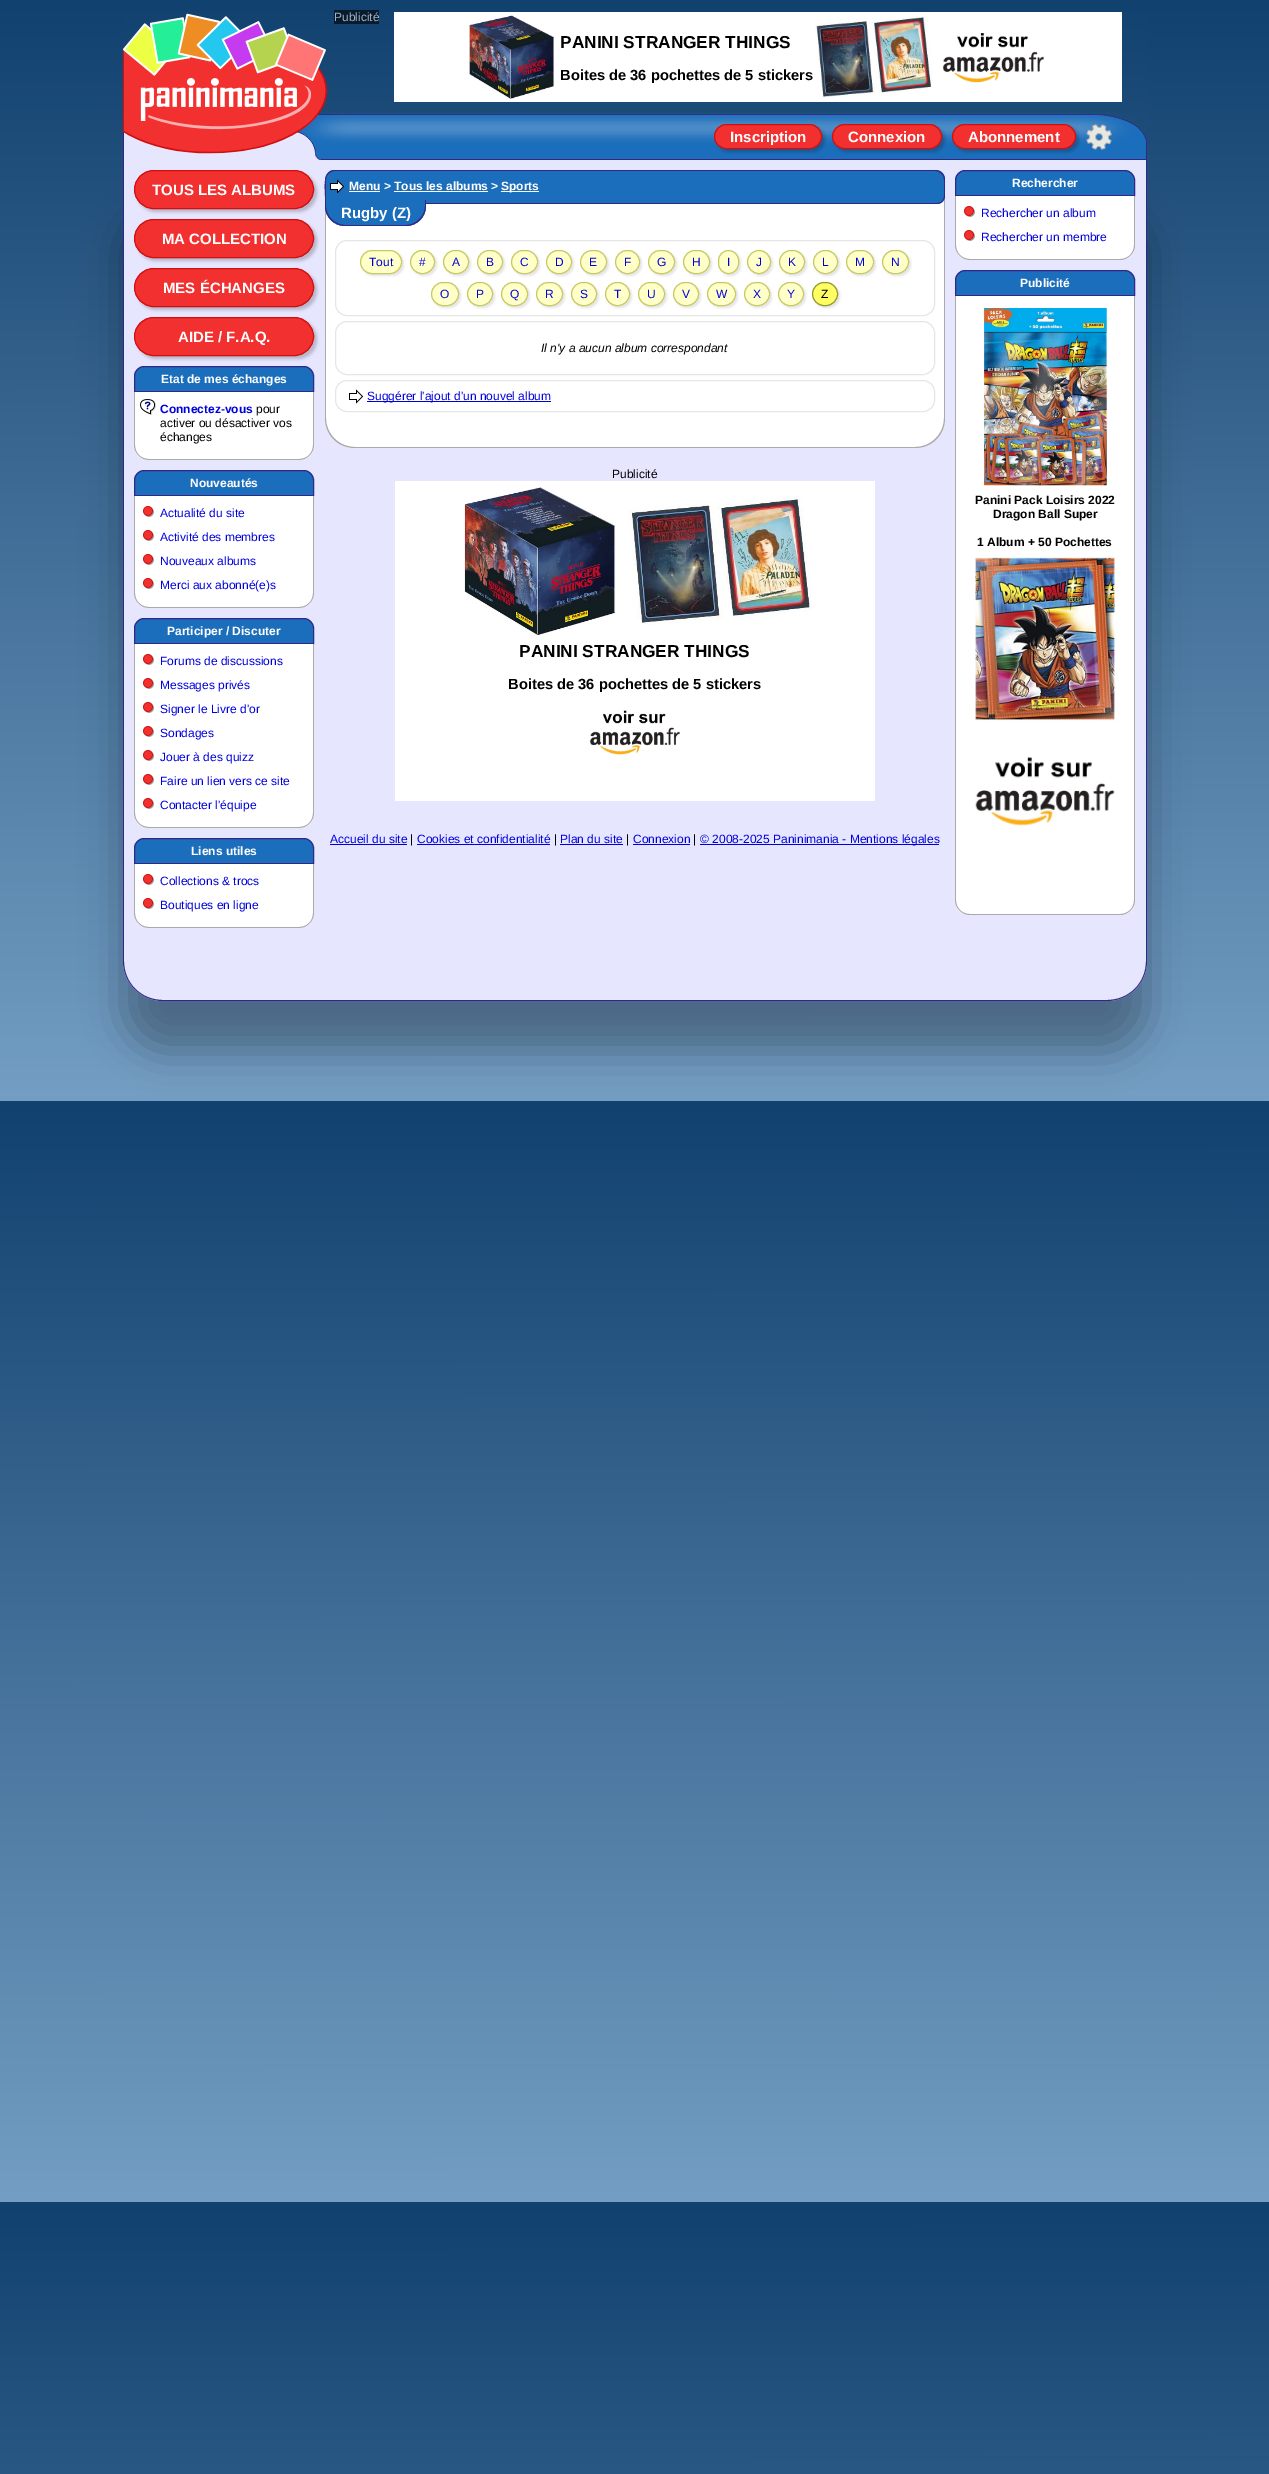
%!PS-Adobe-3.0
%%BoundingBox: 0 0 1269 2474
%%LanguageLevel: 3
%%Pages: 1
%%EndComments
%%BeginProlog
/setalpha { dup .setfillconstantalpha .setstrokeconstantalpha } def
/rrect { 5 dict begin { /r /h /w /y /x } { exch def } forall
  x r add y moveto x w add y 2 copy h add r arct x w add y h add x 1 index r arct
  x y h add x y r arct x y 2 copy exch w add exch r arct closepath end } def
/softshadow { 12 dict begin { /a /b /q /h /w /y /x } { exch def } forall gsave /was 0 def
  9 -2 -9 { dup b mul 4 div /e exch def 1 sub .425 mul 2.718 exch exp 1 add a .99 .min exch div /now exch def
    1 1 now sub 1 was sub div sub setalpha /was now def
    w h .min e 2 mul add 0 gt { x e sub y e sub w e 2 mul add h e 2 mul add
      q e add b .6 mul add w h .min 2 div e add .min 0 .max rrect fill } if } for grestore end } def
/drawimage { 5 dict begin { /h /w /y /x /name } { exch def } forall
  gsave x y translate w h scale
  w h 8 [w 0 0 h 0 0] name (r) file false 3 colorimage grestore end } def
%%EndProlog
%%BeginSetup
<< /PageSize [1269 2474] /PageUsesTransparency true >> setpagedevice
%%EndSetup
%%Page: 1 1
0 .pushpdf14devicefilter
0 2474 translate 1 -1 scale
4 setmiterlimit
1 setgray
0 0 1269 2474 rectfill
gsave newpath 0 0 moveto 1269 0 lineto 1269 1101 lineto 0 1101 lineto closepath clip newpath
<< /ShadingType 2 /ColorSpace /DeviceRGB /Coords [634 0 635 1500] /Extend [true true] /Function << /FunctionType 2 /Domain [0 1] /C0 [0.067 0.255 0.435] /C1 [0.596 0.753 0.886] /N 1 >> >> shfill grestore
gsave newpath 0 1101 moveto 1269 1101 lineto 1269 2202 lineto 0 2202 lineto closepath clip newpath
<< /ShadingType 2 /ColorSpace /DeviceRGB /Coords [634 1101 635 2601] /Extend [true true] /Function << /FunctionType 2 /Domain [0 1] /C0 [0.067 0.255 0.435] /C1 [0.596 0.753 0.886] /N 1 >> >> shfill grestore
gsave newpath 0 2202 moveto 1269 2202 lineto 1269 2474 lineto 0 2474 lineto closepath clip newpath
<< /ShadingType 2 /ColorSpace /DeviceRGB /Coords [634 2202 635 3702] /Extend [true true] /Function << /FunctionType 2 /Domain [0 1] /C0 [0.067 0.255 0.435] /C1 [0.596 0.753 0.886] /N 1 >> >> shfill grestore
(images/14.raw) 123 13 1024 147 drawimage
(images/16.raw) 1086 124 26 26 drawimage
0 setgray
123 210 1024 841 40 20 0.3 softshadow
0.902 0.902 1 setrgbcolor
newpath 123 160 moveto 1147 160 lineto 1147 961 lineto 1147 983 1129 1001 1107 1001 curveto 163 1001 lineto 141 1001 123 983 123 961 curveto closepath fill
0.196 0.153 0.529 setrgbcolor
newpath 123 160 moveto 1147 160 lineto 1147 961 lineto 1147 983 1129 1001 1107 1001 curveto 163 1001 lineto 141 1001 123 983 123 961 curveto closepath 124 160 moveto 1146 160 lineto 1146 961 lineto 1146 983 1129 1000 1107 1000 curveto 163 1000 lineto 141 1000 124 983 124 961 curveto closepath eofill
0.027 0.106 0.176 setrgbcolor
334 10 45 14 rectfill
1 setgray
394 12 728 90 rectfill
(images/1.raw) 469 15 85 84 drawimage
(images/2.raw) 815 15 117 83 drawimage
(images/3.raw) 943 33 101 50 drawimage
0 setgray
137 173 180 39 19.5 1.5 0.2 softshadow
0.949 0.188 0.188 setrgbcolor
134.5 170.5 179 38 19 rrect gsave fill grestore
0.816 0.059 0.059 setrgbcolor
stroke
0 setgray
137 222 180 39 19.5 1.5 0.2 softshadow
0.949 0.188 0.188 setrgbcolor
134.5 219.5 179 38 19 rrect gsave fill grestore
0.816 0.059 0.059 setrgbcolor
stroke
0 setgray
137 271 180 39 19.5 1.5 0.2 softshadow
0.949 0.188 0.188 setrgbcolor
134.5 268.5 179 38 19 rrect gsave fill grestore
0.816 0.059 0.059 setrgbcolor
stroke
0 setgray
137 320 180 39 19.5 1.5 0.2 softshadow
0.949 0.188 0.188 setrgbcolor
134.5 317.5 179 38 19 rrect gsave fill grestore
0.816 0.059 0.059 setrgbcolor
stroke
0.106 0.431 0.733 setrgbcolor
newpath 144 366.5 moveto 304 366.5 lineto 309 366.5 313.5 371 313.5 376 curveto 313.5 391.5 lineto 134.5 391.5 lineto 134.5 376 lineto 134.5 371 139 366.5 144 366.5 curveto closepath gsave fill grestore
0.196 0.153 0.529 setrgbcolor
stroke
1 setgray
newpath 134 392 moveto 314 392 lineto 314 445 lineto 314 453.5 307.5 460 299 460 curveto 149 460 lineto 140.5 460 134 453.5 134 445 curveto closepath fill
0.667 setgray
newpath 134 392 moveto 314 392 lineto 314 445 lineto 314 453 307 460 299 460 curveto 149 460 lineto 141 460 134 453 134 445 curveto closepath 135 392 moveto 313 392 lineto 313 445 lineto 313 453 307 459 299 459 curveto 149 459 lineto 141 459 135 453 135 445 curveto closepath eofill
(images/4.raw) 140 399 16 16 drawimage
0.106 0.431 0.733 setrgbcolor
newpath 144 470.5 moveto 304 470.5 lineto 309 470.5 313.5 475 313.5 480 curveto 313.5 495.5 lineto 134.5 495.5 lineto 134.5 480 lineto 134.5 475 139 470.5 144 470.5 curveto closepath gsave fill grestore
0.196 0.153 0.529 setrgbcolor
stroke
1 setgray
newpath 134 496 moveto 314 496 lineto 314 593 lineto 314 601.5 307.5 608 299 608 curveto 149 608 lineto 140.5 608 134 601.5 134 593 curveto closepath fill
0.667 setgray
newpath 134 496 moveto 314 496 lineto 314 593 lineto 314 601 307 608 299 608 curveto 149 608 lineto 141 608 134 601 134 593 curveto closepath 135 496 moveto 313 496 lineto 313 593 lineto 313 601 307 607 299 607 curveto 149 607 lineto 141 607 135 601 135 593 curveto closepath eofill
(images/5.raw) 143 506 11 11 drawimage
(images/5.raw) 143 530 11 11 drawimage
(images/5.raw) 143 554 11 11 drawimage
(images/5.raw) 143 578 11 11 drawimage
0.106 0.431 0.733 setrgbcolor
newpath 144 618.5 moveto 304 618.5 lineto 309 618.5 313.5 623 313.5 628 curveto 313.5 643.5 lineto 134.5 643.5 lineto 134.5 628 lineto 134.5 623 139 618.5 144 618.5 curveto closepath gsave fill grestore
0.196 0.153 0.529 setrgbcolor
stroke
1 setgray
newpath 134 644 moveto 314 644 lineto 314 813 lineto 314 821.5 307.5 828 299 828 curveto 149 828 lineto 140.5 828 134 821.5 134 813 curveto closepath fill
0.667 setgray
newpath 134 644 moveto 314 644 lineto 314 813 lineto 314 821 307 828 299 828 curveto 149 828 lineto 141 828 134 821 134 813 curveto closepath 135 644 moveto 313 644 lineto 313 813 lineto 313 821 307 827 299 827 curveto 149 827 lineto 141 827 135 821 135 813 curveto closepath eofill
(images/5.raw) 143 654 11 11 drawimage
(images/5.raw) 143 678 11 11 drawimage
(images/5.raw) 143 702 11 11 drawimage
(images/5.raw) 143 726 11 11 drawimage
(images/5.raw) 143 750 11 11 drawimage
(images/5.raw) 143 774 11 11 drawimage
(images/5.raw) 143 798 11 11 drawimage
0.106 0.431 0.733 setrgbcolor
newpath 144 838.5 moveto 304 838.5 lineto 309 838.5 313.5 843 313.5 848 curveto 313.5 863.5 lineto 134.5 863.5 lineto 134.5 848 lineto 134.5 843 139 838.5 144 838.5 curveto closepath gsave fill grestore
0.196 0.153 0.529 setrgbcolor
stroke
1 setgray
newpath 134 864 moveto 314 864 lineto 314 913 lineto 314 921.5 307.5 928 299 928 curveto 149 928 lineto 140.5 928 134 921.5 134 913 curveto closepath fill
0.667 setgray
newpath 134 864 moveto 314 864 lineto 314 913 lineto 314 921 307 928 299 928 curveto 149 928 lineto 141 928 134 921 134 913 curveto closepath 135 864 moveto 313 864 lineto 313 913 lineto 313 921 307 927 299 927 curveto 149 927 lineto 141 927 135 921 135 913 curveto closepath eofill
(images/5.raw) 143 874 11 11 drawimage
(images/5.raw) 143 898 11 11 drawimage
0.106 0.431 0.733 setrgbcolor
newpath 335 170 moveto 935 170 lineto 940.5 170 945 174.5 945 180 curveto 945 196 lineto 325 196 lineto 325 180 lineto 325 174.5 329.5 170 335 170 curveto closepath fill
0.196 0.153 0.529 setrgbcolor
newpath 335 170 moveto 935 170 lineto 941 170 945 174 945 180 curveto 945 196 lineto 325 196 lineto 325 188 322 170 335 170 curveto closepath 335 171 moveto 935 171 lineto 940 171 944 175 944 180 curveto 944 196 lineto 326 196 lineto 326 180 lineto 326 175 330 171 335 171 curveto closepath eofill
(images/6.raw) 330 179 15 14 drawimage
1 setgray
349 191 31 1 rectfill
501 191 38 1 rectfill
394 191 94 1 rectfill
326 199 618 27 rectfill
0.667 setgray
944 196 1 30 rectfill
325 206 1 20 rectfill
0.106 0.431 0.733 setrgbcolor
newpath 325 196 moveto 945 196 lineto 945 200.5 941.5 204 937 204 curveto 325 204 lineto closepath fill
0.196 0.153 0.529 setrgbcolor
newpath 325 196 moveto 945 196 lineto 945 200 941 204 937 204 curveto 325 204 lineto closepath 326 196 moveto 944 196 lineto 944 200 941 203 937 203 curveto 326 203 lineto closepath eofill
0.106 0.431 0.733 setrgbcolor
newpath 325 200 moveto 426 200 lineto 426 206 lineto 426 217 417 226 406 226 curveto 345 226 lineto 334 226 325 217 325 206 curveto closepath fill
0.196 0.153 0.529 setrgbcolor
newpath 325 200 moveto 426 200 lineto 426 206 lineto 426 217 417 226 406 226 curveto 345 226 lineto 334 226 325 217 325 206 curveto closepath 326 200 moveto 425 200 lineto 425 206 lineto 425 216 416 225 406 225 curveto 345 225 lineto 335 225 326 216 326 206 curveto closepath eofill
1 setgray
newpath 325 226 moveto 945 226 lineto 945 418 lineto 945 434.5 931.5 448 915 448 curveto 355 448 lineto 338.5 448 325 434.5 325 418 curveto closepath fill
0.667 setgray
newpath 325 226 moveto 945 226 lineto 945 418 lineto 945 435 932 448 915 448 curveto 355 448 lineto 338 448 325 435 325 418 curveto closepath 326 226 moveto 944 226 lineto 944 418 lineto 944 434 931 447 915 447 curveto 355 447 lineto 339 447 326 434 326 418 curveto closepath eofill
0.902 setgray
335.5 240.5 599 75 11.5 rrect stroke
0 setgray
362 252 42 24 12 1 0.1 softshadow
1 1 0.784 setrgbcolor
360.5 250.5 41 23 11.5 rrect gsave fill grestore
0.784 0.784 0.392 setrgbcolor
stroke
0 setgray
412 252 25 24 12 1 0.1 softshadow
1 1 0.784 setrgbcolor
410.5 250.5 24 23 11.5 rrect gsave fill grestore
0.784 0.784 0.392 setrgbcolor
stroke
0 setgray
445 252 26 24 12 1 0.1 softshadow
1 1 0.784 setrgbcolor
443.5 250.5 25 23 11.5 rrect gsave fill grestore
0.784 0.784 0.392 setrgbcolor
stroke
0 setgray
479 252 26 24 12 1 0.1 softshadow
1 1 0.784 setrgbcolor
477.5 250.5 25 23 11.5 rrect gsave fill grestore
0.784 0.784 0.392 setrgbcolor
stroke
0 setgray
513 252 27 24 12 1 0.1 softshadow
1 1 0.784 setrgbcolor
511.5 250.5 26 23 11.5 rrect gsave fill grestore
0.784 0.784 0.392 setrgbcolor
stroke
0 setgray
548 252 26 24 12 1 0.1 softshadow
1 1 0.784 setrgbcolor
546.5 250.5 25 23 11.5 rrect gsave fill grestore
0.784 0.784 0.392 setrgbcolor
stroke
0 setgray
582 252 27 24 12 1 0.1 softshadow
1 1 0.784 setrgbcolor
580.5 250.5 26 23 11.5 rrect gsave fill grestore
0.784 0.784 0.392 setrgbcolor
stroke
0 setgray
617 252 25 24 12 1 0.1 softshadow
1 1 0.784 setrgbcolor
615.5 250.5 24 23 11.5 rrect gsave fill grestore
0.784 0.784 0.392 setrgbcolor
stroke
0 setgray
650 252 27 24 12 1 0.1 softshadow
1 1 0.784 setrgbcolor
648.5 250.5 26 23 11.5 rrect gsave fill grestore
0.784 0.784 0.392 setrgbcolor
stroke
0 setgray
685 252 27 24 12 1 0.1 softshadow
1 1 0.784 setrgbcolor
683.5 250.5 26 23 11.5 rrect gsave fill grestore
0.784 0.784 0.392 setrgbcolor
stroke
0 setgray
720 252 21 24 10.5 1 0.1 softshadow
1 1 0.784 setrgbcolor
718.5 250.5 20 23 10 rrect gsave fill grestore
0.784 0.784 0.392 setrgbcolor
stroke
0 setgray
749 252 24 24 12 1 0.1 softshadow
1 1 0.784 setrgbcolor
newpath 759 262 11.5 0 360 arc closepath gsave fill grestore
0.784 0.784 0.392 setrgbcolor
stroke
0 setgray
781 252 26 24 12 1 0.1 softshadow
1 1 0.784 setrgbcolor
779.5 250.5 25 23 11.5 rrect gsave fill grestore
0.784 0.784 0.392 setrgbcolor
stroke
0 setgray
815 252 25 24 12 1 0.1 softshadow
1 1 0.784 setrgbcolor
813.5 250.5 24 23 11.5 rrect gsave fill grestore
0.784 0.784 0.392 setrgbcolor
stroke
0 setgray
848 252 28 24 12 1 0.1 softshadow
1 1 0.784 setrgbcolor
846.5 250.5 27 23 11.5 rrect gsave fill grestore
0.784 0.784 0.392 setrgbcolor
stroke
0 setgray
884 252 27 24 12 1 0.1 softshadow
1 1 0.784 setrgbcolor
882.5 250.5 26 23 11.5 rrect gsave fill grestore
0.784 0.784 0.392 setrgbcolor
stroke
0 setgray
433 284 28 24 12 1 0.1 softshadow
1 1 0.784 setrgbcolor
431.5 282.5 27 23 11.5 rrect gsave fill grestore
0.784 0.784 0.392 setrgbcolor
stroke
0 setgray
469 284 26 24 12 1 0.1 softshadow
1 1 0.784 setrgbcolor
467.5 282.5 25 23 11.5 rrect gsave fill grestore
0.784 0.784 0.392 setrgbcolor
stroke
0 setgray
503 284 27 24 12 1 0.1 softshadow
1 1 0.784 setrgbcolor
501.5 282.5 26 23 11.5 rrect gsave fill grestore
0.784 0.784 0.392 setrgbcolor
stroke
0 setgray
538 284 27 24 12 1 0.1 softshadow
1 1 0.784 setrgbcolor
536.5 282.5 26 23 11.5 rrect gsave fill grestore
0.784 0.784 0.392 setrgbcolor
stroke
0 setgray
573 284 26 24 12 1 0.1 softshadow
1 1 0.784 setrgbcolor
571.5 282.5 25 23 11.5 rrect gsave fill grestore
0.784 0.784 0.392 setrgbcolor
stroke
0 setgray
607 284 25 24 12 1 0.1 softshadow
1 1 0.784 setrgbcolor
605.5 282.5 24 23 11.5 rrect gsave fill grestore
0.784 0.784 0.392 setrgbcolor
stroke
0 setgray
640 284 27 24 12 1 0.1 softshadow
1 1 0.784 setrgbcolor
638.5 282.5 26 23 11.5 rrect gsave fill grestore
0.784 0.784 0.392 setrgbcolor
stroke
0 setgray
675 284 26 24 12 1 0.1 softshadow
1 1 0.784 setrgbcolor
673.5 282.5 25 23 11.5 rrect gsave fill grestore
0.784 0.784 0.392 setrgbcolor
stroke
0 setgray
709 284 29 24 12 1 0.1 softshadow
1 1 0.784 setrgbcolor
707.5 282.5 28 23 11.5 rrect gsave fill grestore
0.784 0.784 0.392 setrgbcolor
stroke
0 setgray
746 284 26 24 12 1 0.1 softshadow
1 1 0.784 setrgbcolor
744.5 282.5 25 23 11.5 rrect gsave fill grestore
0.784 0.784 0.392 setrgbcolor
stroke
0 setgray
780 284 26 24 12 1 0.1 softshadow
1 1 0.784 setrgbcolor
778.5 282.5 25 23 11.5 rrect gsave fill grestore
0.784 0.784 0.392 setrgbcolor
stroke
0 setgray
814 284 26 24 12 1 0.1 softshadow
1 1 0.392 setrgbcolor
812.5 282.5 25 23 11.5 rrect gsave fill grestore
0.588 0.588 0.196 setrgbcolor
stroke
0.902 setgray
335.5 321.5 599 53 11.5 rrect stroke
335.5 380.5 599 31 11.5 rrect stroke
(images/7.raw) 349 389 15 15 drawimage
0 0 0.863 setrgbcolor
367 401 184 1 rectfill
1 setgray
395 481 480 320 rectfill
(images/8.raw) 464 487 152 148 drawimage
(images/9.raw) 629 496 183 129 drawimage
(images/10.raw) 590 710 90 45 drawimage
0 0 0.863 setrgbcolor
330 844 77 1 rectfill
417 844 133 1 rectfill
560 844 63 1 rectfill
633 844 57 1 rectfill
700 844 239 1 rectfill
0.106 0.431 0.733 setrgbcolor
newpath 965 170.5 moveto 1125 170.5 lineto 1130 170.5 1134.5 175 1134.5 180 curveto 1134.5 195.5 lineto 955.5 195.5 lineto 955.5 180 lineto 955.5 175 960 170.5 965 170.5 curveto closepath gsave fill grestore
0.196 0.153 0.529 setrgbcolor
stroke
1 setgray
newpath 955 196 moveto 1135 196 lineto 1135 245 lineto 1135 253.5 1128.5 260 1120 260 curveto 970 260 lineto 961.5 260 955 253.5 955 245 curveto closepath fill
0.667 setgray
newpath 955 196 moveto 1135 196 lineto 1135 245 lineto 1135 253 1128 260 1120 260 curveto 970 260 lineto 962 260 955 253 955 245 curveto closepath 956 196 moveto 1134 196 lineto 1134 245 lineto 1134 253 1128 259 1120 259 curveto 970 259 lineto 962 259 956 253 956 245 curveto closepath eofill
(images/5.raw) 964 206 11 11 drawimage
(images/5.raw) 964 230 11 11 drawimage
0.106 0.431 0.733 setrgbcolor
newpath 965 270.5 moveto 1125 270.5 lineto 1130 270.5 1134.5 275 1134.5 280 curveto 1134.5 295.5 lineto 955.5 295.5 lineto 955.5 280 lineto 955.5 275 960 270.5 965 270.5 curveto closepath gsave fill grestore
0.196 0.153 0.529 setrgbcolor
stroke
1 setgray
newpath 955 296 moveto 1135 296 lineto 1135 900 lineto 1135 908.5 1128.5 915 1120 915 curveto 970 915 lineto 961.5 915 955 908.5 955 900 curveto closepath fill
0.667 setgray
newpath 955 296 moveto 1135 296 lineto 1135 900 lineto 1135 908 1128 915 1120 915 curveto 970 915 lineto 962 915 955 908 955 900 curveto closepath 956 296 moveto 1134 296 lineto 1134 900 lineto 1134 908 1128 914 1120 914 curveto 970 914 lineto 962 914 956 908 956 900 curveto closepath eofill
(images/11.raw) 983 306 125 180 drawimage
(images/12.raw) 975 557 143 165 drawimage
(images/13.raw) 975 757 140 69 drawimage
(images/15.raw) 140 78 172 52 drawimage
0 setgray
717 127 108 25 12.5 1.5 0.2 softshadow
0.949 0.188 0.188 setrgbcolor
714.5 124.5 107 24 12 rrect gsave fill grestore
0.816 0.059 0.059 setrgbcolor
stroke
0 setgray
835 127 110 25 12.5 1.5 0.2 softshadow
0.949 0.188 0.188 setrgbcolor
832.5 124.5 109 24 12 rrect gsave fill grestore
0.816 0.059 0.059 setrgbcolor
stroke
0 setgray
955 127 124 25 12.5 1.5 0.2 softshadow
0.949 0.188 0.188 setrgbcolor
952.5 124.5 123 24 12 rrect gsave fill grestore
0.816 0.059 0.059 setrgbcolor
stroke
/LiberationSans-Regular [12 0 0 -12 0 0] selectfont
0.627 0.706 0.776 setrgbcolor
334 21 moveto (Publicité) show
/LiberationSans-Bold [17.3 0 0 -17.3 0 0] selectfont
0 setgray
560 48 moveto (PANINI STRANGER THINGS) show
/LiberationSans-Bold [14.7 0 0 -14.7 0 0] selectfont
560 80 moveto (Boites de 36 pochettes de 5 stickers) show
/LiberationSans-Bold [15 0 0 -15 0 0] selectfont
1 setgray
152 195 moveto (TOUS LES ALBUMS) show
162 244 moveto (MA COLLECTION) show
163 293 moveto (MES ÉCHANGES) show
178 342 moveto (AIDE / F.A.Q.) show
/LiberationSans-Bold [12 0 0 -12 0 0] selectfont
161 383 moveto (Etat de mes échanges) show
0 0 0.863 setrgbcolor
160 413 moveto (Connectez-vous) show
/LiberationSans-Regular [12 0 0 -12 0 0] selectfont
0 setgray
256 413 moveto (pour) show
160 427 moveto (activer ou désactiver vos) show
160 441 moveto (échanges) show
/LiberationSans-Bold [12 0 0 -12 0 0] selectfont
1 setgray
190 487 moveto (Nouveautés) show
/LiberationSans-Regular [12 0 0 -12 0 0] selectfont
0 0 0.863 setrgbcolor
160 517 moveto (Actualité du site) show
160 541 moveto (Activité des membres) show
160 565 moveto (Nouveaux albums) show
160 589 moveto (Merci aux abonné\(e\)s) show
/LiberationSans-Bold [12 0 0 -12 0 0] selectfont
1 setgray
167 635 moveto (Participer / Discuter) show
/LiberationSans-Regular [12 0 0 -12 0 0] selectfont
0 0 0.863 setrgbcolor
160 665 moveto (Forums de discussions) show
160 689 moveto (Messages privés) show
160 713 moveto (Signer le Livre d'or) show
160 737 moveto (Sondages) show
160 761 moveto (Jouer à des quizz) show
160 785 moveto (Faire un lien vers ce site) show
160 809 moveto (Contacter l'équipe) show
/LiberationSans-Bold [12 0 0 -12 0 0] selectfont
1 setgray
191 855 moveto (Liens utiles) show
/LiberationSans-Regular [12 0 0 -12 0 0] selectfont
0 0 0.863 setrgbcolor
160 885 moveto (Collections & trocs) show
160 909 moveto (Boutiques en ligne) show
/LiberationSans-Bold [12 0 0 -12 0 0] selectfont
1 setgray
349 190 moveto (Menu > Tous les albums >) show
501 190 moveto (Sports) show
/LiberationSans-Bold [15 0 0 -15 0 0] selectfont
341 218 moveto (Rugby \(Z\)) show
/LiberationSans-Regular [12 0 0 -12 0 0] selectfont
0 0 0.863 setrgbcolor
369 266 moveto (Tout) show
419 266 moveto (#) show
452 266 moveto (A) show
486 266 moveto (B) show
520 266 moveto (C) show
555 266 moveto (D) show
589 266 moveto (E) show
624 266 moveto (F) show
657 266 moveto (G) show
692 266 moveto (H) show
727 266 moveto (I) show
756 266 moveto (J) show
788 266 moveto (K) show
822 266 moveto (L) show
855 266 moveto (M) show
891 266 moveto (N) show
440 298 moveto (O) show
476 298 moveto (P) show
510 298 moveto (Q) show
545 298 moveto (R) show
580 298 moveto (S) show
614 298 moveto (T) show
647 298 moveto (U) show
682 298 moveto (V) show
716 298 moveto (W) show
753 298 moveto (X) show
787 298 moveto (Y) show
0 setgray
821 298 moveto (Z) show
/LiberationSans-Italic [12 0 0 -12 0 0] selectfont
541 352 moveto (Il n'y a aucun album correspondant) show
/LiberationSans-Regular [12 0 0 -12 0 0] selectfont
0 0 0.863 setrgbcolor
367 400 moveto (Suggérer l'ajout d'un nouvel album) show
0 setgray
612 478 moveto (Publicité) show
/LiberationSans-Bold [17.3 0 0 -17.3 0 0] selectfont
519 657 moveto (PANINI STRANGER THINGS) show
/LiberationSans-Bold [14.7 0 0 -14.7 0 0] selectfont
508 689 moveto (Boites de 36 pochettes de 5 stickers) show
/LiberationSans-Regular [12 0 0 -12 0 0] selectfont
0 0 0.863 setrgbcolor
330 843 moveto (Accueil du site) show
0 setgray
410 843 moveto (|) show
0 0 0.863 setrgbcolor
417 843 moveto (Cookies et confidentialité) show
0 setgray
554 843 moveto (|) show
0 0 0.863 setrgbcolor
560 843 moveto (Plan du site) show
0 setgray
626 843 moveto (|) show
0 0 0.863 setrgbcolor
633 843 moveto (Connexion) show
0 setgray
693 843 moveto (|) show
0 0 0.863 setrgbcolor
700 843 moveto (© 2008-2025 Paninimania - Mentions légales) show
/LiberationSans-Bold [12 0 0 -12 0 0] selectfont
1 setgray
1012 187 moveto (Rechercher) show
/LiberationSans-Regular [12 0 0 -12 0 0] selectfont
0 0 0.863 setrgbcolor
981 217 moveto (Rechercher un album) show
981 241 moveto (Rechercher un membre) show
/LiberationSans-Bold [12 0 0 -12 0 0] selectfont
1 setgray
1020 287 moveto (Publicité) show
0 setgray
975 504 moveto (Panini Pack Loisirs 2022) show
993 518 moveto (Dragon Ball Super) show
977 546 moveto (1 Album + 50 Pochettes) show
/LiberationSans-Bold [15 0 0 -15 0 0] selectfont
1 setgray
730 142 moveto (Inscription) show
848 142 moveto (Connexion) show
968 142 moveto (Abonnement) show
.poppdf14devicefilter showpage
%%EOF
